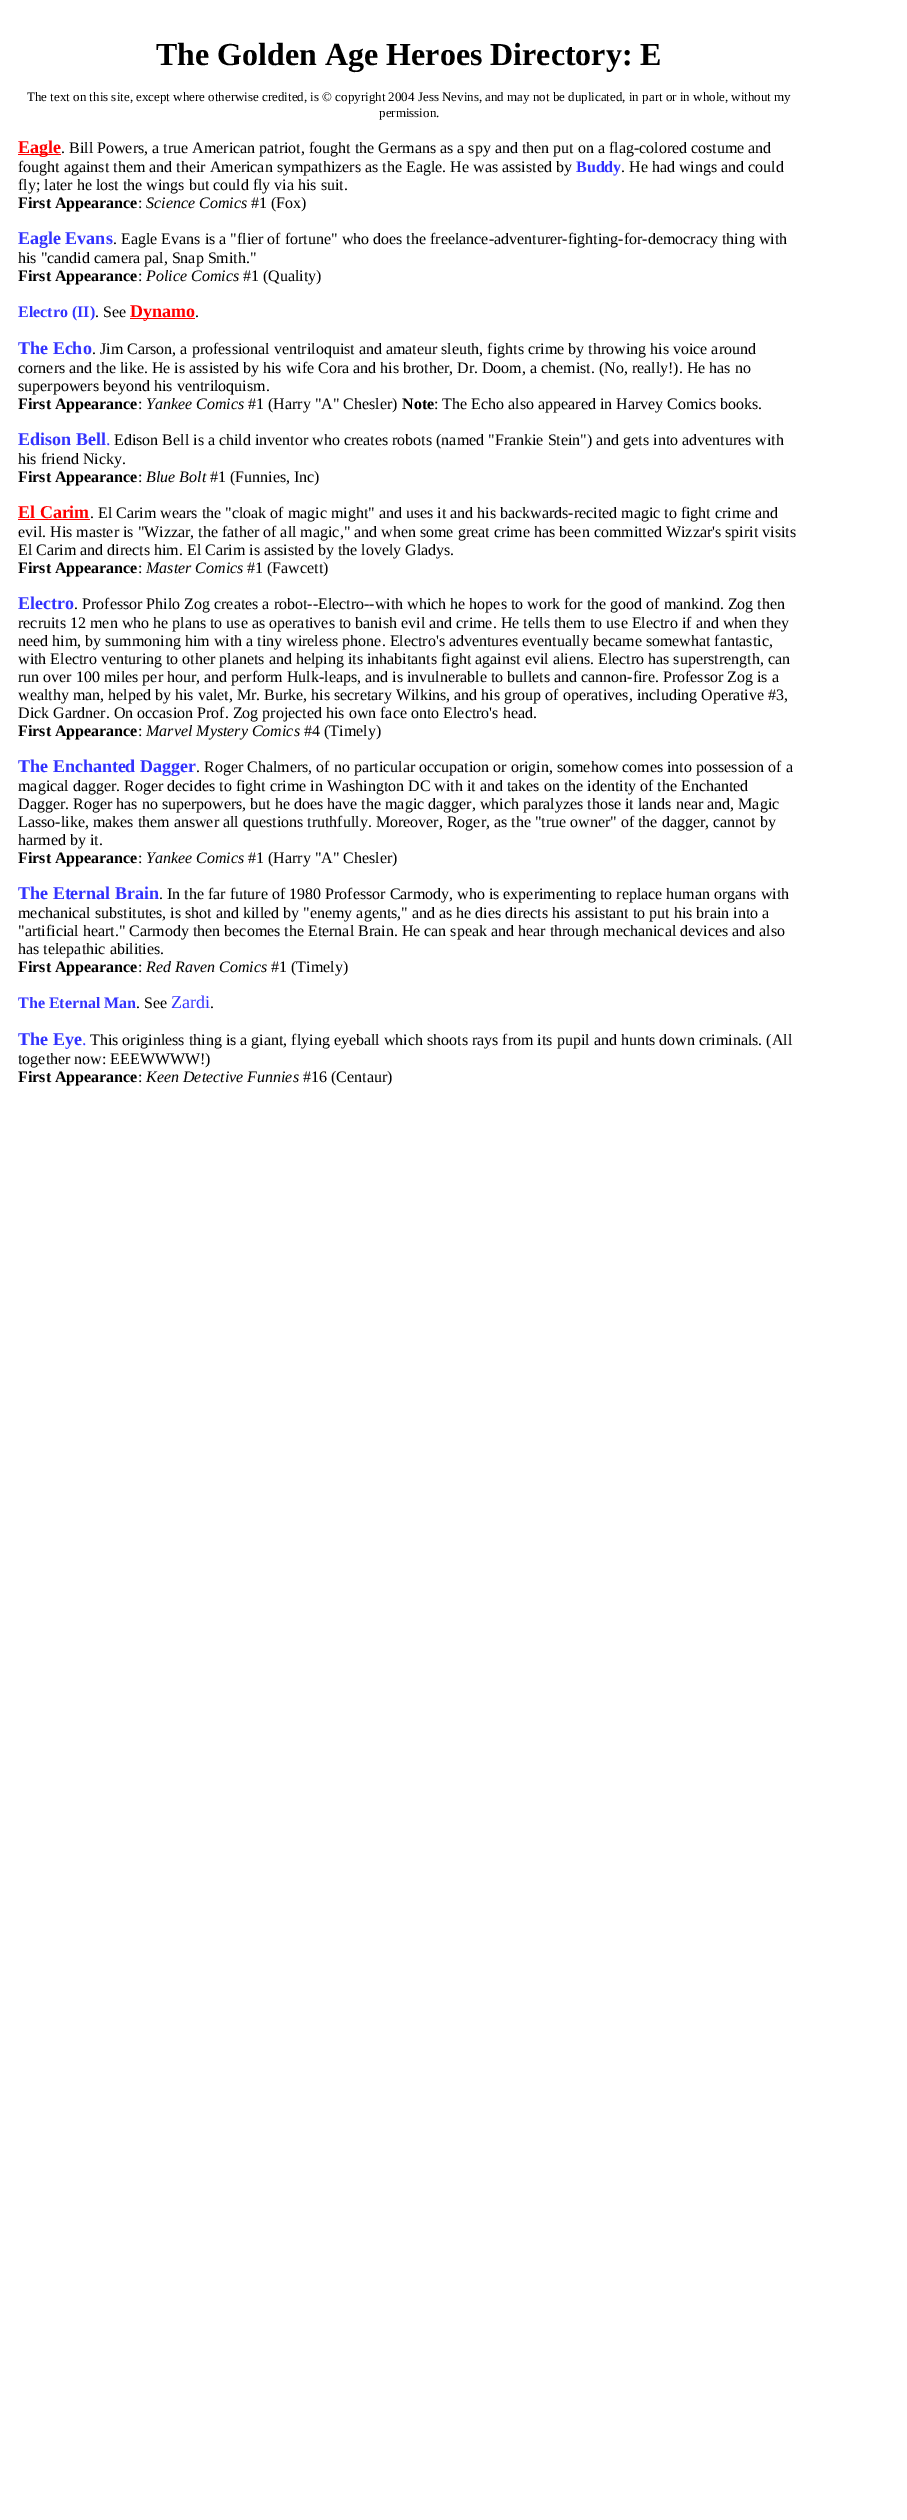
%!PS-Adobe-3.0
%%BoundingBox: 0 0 907 2520
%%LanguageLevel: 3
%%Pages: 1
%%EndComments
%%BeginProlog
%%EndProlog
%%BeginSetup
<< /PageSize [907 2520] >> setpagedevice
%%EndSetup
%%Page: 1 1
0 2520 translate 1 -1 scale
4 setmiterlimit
1 setgray
0 0 907 2520 rectfill
1 0 0 setrgbcolor
18 154 43 1 rectfill
130 318 65 1 rectfill
18 519 72 1 rectfill
/LiberationSerif-Bold [32 0 0 -32 0 0] selectfont
0 setgray
156 65 moveto (The Golden Age Heroes Directory: E) show
/LiberationSerif-Regular [13 0 0 -13 0 0] selectfont
27 101 moveto (The text on this site, except where otherwise credited, is © copyright 2004 Jess Nevins, and may not be duplicated, in part or in whole, without my) show
379 117 moveto (permission.) show
/LiberationSerif-Bold [18 0 0 -18 0 0] selectfont
1 0 0 setrgbcolor
18 153 moveto (Eagle) show
/LiberationSerif-Regular [16 0 0 -16 0 0] selectfont
0 setgray
61 153 moveto (. Bill Powers, a true American patriot, fought the Germans as a spy and then put on a flag-colored costume and) show
18 172 moveto (fought against them and their American sympathizers as the Eagle. He was assisted by) show
/LiberationSerif-Bold [16 0 0 -16 0 0] selectfont
0.2 0.2 1 setrgbcolor
576 172 moveto (Buddy) show
/LiberationSerif-Regular [16 0 0 -16 0 0] selectfont
0 setgray
621 172 moveto (. He had wings and could) show
18 190 moveto (fly; later he lost the wings but could fly via his suit.) show
/LiberationSerif-Bold [16 0 0 -16 0 0] selectfont
18 208 moveto (First Appearance) show
/LiberationSerif-Regular [16 0 0 -16 0 0] selectfont
138 208 moveto (:) show
/LiberationSerif-Italic [16 0 0 -16 0 0] selectfont
146 208 moveto (Science Comics) show
/LiberationSerif-Regular [16 0 0 -16 0 0] selectfont
251 208 moveto (#1 \(Fox\)) show
/LiberationSerif-Bold [18 0 0 -18 0 0] selectfont
0.2 0.2 1 setrgbcolor
18 244 moveto (Eagle Evans) show
/LiberationSerif-Regular [16 0 0 -16 0 0] selectfont
0 setgray
113 244 moveto (. Eagle Evans is a "flier of fortune" who does the freelance-adventurer-fighting-for-democracy thing with) show
18 263 moveto (his "candid camera pal, Snap Smith.") show
/LiberationSerif-Bold [16 0 0 -16 0 0] selectfont
18 281 moveto (First Appearance) show
/LiberationSerif-Regular [16 0 0 -16 0 0] selectfont
138 281 moveto (:) show
/LiberationSerif-Italic [16 0 0 -16 0 0] selectfont
146 281 moveto (Police Comics) show
/LiberationSerif-Regular [16 0 0 -16 0 0] selectfont
243 281 moveto (#1 \(Quality\)) show
/LiberationSerif-Bold [16 0 0 -16 0 0] selectfont
0.2 0.2 1 setrgbcolor
18 317 moveto (Electro \(II\)) show
/LiberationSerif-Regular [16 0 0 -16 0 0] selectfont
0 setgray
95 317 moveto (. See) show
/LiberationSerif-Bold [18 0 0 -18 0 0] selectfont
1 0 0 setrgbcolor
130 317 moveto (Dynamo) show
/LiberationSerif-Regular [16 0 0 -16 0 0] selectfont
0 setgray
195 317 moveto (.) show
/LiberationSerif-Bold [18 0 0 -18 0 0] selectfont
0.2 0.2 1 setrgbcolor
18 354 moveto (The Echo) show
/LiberationSerif-Regular [16 0 0 -16 0 0] selectfont
0 setgray
92 354 moveto (. Jim Carson, a professional ventriloquist and amateur sleuth, fights crime by throwing his voice around) show
18 373 moveto (corners and the like. He is assisted by his wife Cora and his brother, Dr. Doom, a chemist. \(No, really!\). He has no) show
18 391 moveto (superpowers beyond his ventriloquism.) show
/LiberationSerif-Bold [16 0 0 -16 0 0] selectfont
18 409 moveto (First Appearance) show
/LiberationSerif-Regular [16 0 0 -16 0 0] selectfont
138 409 moveto (:) show
/LiberationSerif-Italic [16 0 0 -16 0 0] selectfont
146 409 moveto (Yankee Comics) show
/LiberationSerif-Regular [16 0 0 -16 0 0] selectfont
248 409 moveto (#1 \(Harry "A" Chesler\)) show
/LiberationSerif-Bold [16 0 0 -16 0 0] selectfont
402 409 moveto (Note) show
/LiberationSerif-Regular [16 0 0 -16 0 0] selectfont
434 409 moveto (: The Echo also appeared in Harvey Comics books.) show
/LiberationSerif-Bold [18 0 0 -18 0 0] selectfont
0.2 0.2 1 setrgbcolor
18 445 moveto (Edison Bell) show
/LiberationSerif-Regular [18 0 0 -18 0 0] selectfont
106 445 moveto (.) show
/LiberationSerif-Regular [16 0 0 -16 0 0] selectfont
0 setgray
114 445 moveto (Edison Bell is a child inventor who creates robots \(named "Frankie Stein"\) and gets into adventures with) show
18 464 moveto (his friend Nicky.) show
/LiberationSerif-Bold [16 0 0 -16 0 0] selectfont
18 482 moveto (First Appearance) show
/LiberationSerif-Regular [16 0 0 -16 0 0] selectfont
138 482 moveto (:) show
/LiberationSerif-Italic [16 0 0 -16 0 0] selectfont
146 482 moveto (Blue Bolt) show
/LiberationSerif-Regular [16 0 0 -16 0 0] selectfont
210 482 moveto (#1 \(Funnies, Inc\)) show
/LiberationSerif-Bold [18 0 0 -18 0 0] selectfont
1 0 0 setrgbcolor
18 518 moveto (El Carim) show
/LiberationSerif-Regular [16 0 0 -16 0 0] selectfont
0 setgray
90 518 moveto (. El Carim wears the "cloak of magic might" and uses it and his backwards-recited magic to fight crime and) show
18 537 moveto (evil. His master is "Wizzar, the father of all magic," and when some great crime has been committed Wizzar's spirit visits) show
18 555 moveto (El Carim and directs him. El Carim is assisted by the lovely Gladys.) show
/LiberationSerif-Bold [16 0 0 -16 0 0] selectfont
18 573 moveto (First Appearance) show
/LiberationSerif-Regular [16 0 0 -16 0 0] selectfont
138 573 moveto (:) show
/LiberationSerif-Italic [16 0 0 -16 0 0] selectfont
146 573 moveto (Master Comics) show
/LiberationSerif-Regular [16 0 0 -16 0 0] selectfont
247 573 moveto (#1 \(Fawcett\)) show
/LiberationSerif-Bold [18 0 0 -18 0 0] selectfont
0.2 0.2 1 setrgbcolor
18 609 moveto (Electro) show
/LiberationSerif-Regular [16 0 0 -16 0 0] selectfont
0 setgray
74 609 moveto (. Professor Philo Zog creates a robot--Electro--with which he hopes to work for the good of mankind. Zog then) show
18 628 moveto (recruits 12 men who he plans to use as operatives to banish evil and crime. He tells them to use Electro if and when they) show
18 646 moveto (need him, by summoning him with a tiny wireless phone. Electro's adventures eventually became somewhat fantastic,) show
18 664 moveto (with Electro venturing to other planets and helping its inhabitants fight against evil aliens. Electro has superstrength, can) show
18 682 moveto (run over 100 miles per hour, and perform Hulk-leaps, and is invulnerable to bullets and cannon-fire. Professor Zog is a) show
18 700 moveto (wealthy man, helped by his valet, Mr. Burke, his secretary Wilkins, and his group of operatives, including Operative #3,) show
18 718 moveto (Dick Gardner. On occasion Prof. Zog projected his own face onto Electro's head.) show
/LiberationSerif-Bold [16 0 0 -16 0 0] selectfont
18 736 moveto (First Appearance) show
/LiberationSerif-Regular [16 0 0 -16 0 0] selectfont
138 736 moveto (:) show
/LiberationSerif-Italic [16 0 0 -16 0 0] selectfont
146 736 moveto (Marvel Mystery Comics) show
/LiberationSerif-Regular [16 0 0 -16 0 0] selectfont
304 736 moveto (#4 \(Timely\)) show
/LiberationSerif-Bold [18 0 0 -18 0 0] selectfont
0.2 0.2 1 setrgbcolor
18 772 moveto (The Enchanted Dagger) show
/LiberationSerif-Regular [16 0 0 -16 0 0] selectfont
0 setgray
196 772 moveto (. Roger Chalmers, of no particular occupation or origin, somehow comes into possession of a) show
18 791 moveto (magical dagger. Roger decides to fight crime in Washington DC with it and takes on the identity of the Enchanted) show
18 809 moveto (Dagger. Roger has no superpowers, but he does have the magic dagger, which paralyzes those it lands near and, Magic) show
18 827 moveto (Lasso-like, makes them answer all questions truthfully. Moreover, Roger, as the "true owner" of the dagger, cannot by) show
18 845 moveto (harmed by it.) show
/LiberationSerif-Bold [16 0 0 -16 0 0] selectfont
18 863 moveto (First Appearance) show
/LiberationSerif-Regular [16 0 0 -16 0 0] selectfont
138 863 moveto (:) show
/LiberationSerif-Italic [16 0 0 -16 0 0] selectfont
146 863 moveto (Yankee Comics) show
/LiberationSerif-Regular [16 0 0 -16 0 0] selectfont
248 863 moveto (#1 \(Harry "A" Chesler\)) show
/LiberationSerif-Bold [18 0 0 -18 0 0] selectfont
0.2 0.2 1 setrgbcolor
18 899 moveto (The Eternal Brain) show
/LiberationSerif-Regular [16 0 0 -16 0 0] selectfont
0 setgray
159 899 moveto (. In the far future of 1980 Professor Carmody, who is experimenting to replace human organs with) show
18 918 moveto (mechanical substitutes, is shot and killed by "enemy agents," and as he dies directs his assistant to put his brain into a) show
18 936 moveto ("artificial heart." Carmody then becomes the Eternal Brain. He can speak and hear through mechanical devices and also) show
18 954 moveto (has telepathic abilities.) show
/LiberationSerif-Bold [16 0 0 -16 0 0] selectfont
18 972 moveto (First Appearance) show
/LiberationSerif-Regular [16 0 0 -16 0 0] selectfont
138 972 moveto (:) show
/LiberationSerif-Italic [16 0 0 -16 0 0] selectfont
146 972 moveto (Red Raven Comics) show
/LiberationSerif-Regular [16 0 0 -16 0 0] selectfont
271 972 moveto (#1 \(Timely\)) show
/LiberationSerif-Bold [16 0 0 -16 0 0] selectfont
0.2 0.2 1 setrgbcolor
18 1008 moveto (The Eternal Man) show
/LiberationSerif-Regular [16 0 0 -16 0 0] selectfont
0 setgray
136 1008 moveto (. See) show
/LiberationSerif-Regular [18 0 0 -18 0 0] selectfont
0.2 0.2 1 setrgbcolor
171 1008 moveto (Zardi) show
/LiberationSerif-Regular [16 0 0 -16 0 0] selectfont
0 setgray
210 1008 moveto (.) show
/LiberationSerif-Bold [18 0 0 -18 0 0] selectfont
0.2 0.2 1 setrgbcolor
18 1045 moveto (The Eye) show
/LiberationSerif-Regular [18 0 0 -18 0 0] selectfont
82 1045 moveto (.) show
/LiberationSerif-Regular [16 0 0 -16 0 0] selectfont
0 setgray
90 1045 moveto (This originless thing is a giant, flying eyeball which shoots rays from its pupil and hunts down criminals. \(All) show
18 1064 moveto (together now: EEEWWWW!\)) show
/LiberationSerif-Bold [16 0 0 -16 0 0] selectfont
18 1082 moveto (First Appearance) show
/LiberationSerif-Regular [16 0 0 -16 0 0] selectfont
138 1082 moveto (:) show
/LiberationSerif-Italic [16 0 0 -16 0 0] selectfont
146 1082 moveto (Keen Detective Funnies) show
/LiberationSerif-Regular [16 0 0 -16 0 0] selectfont
303 1082 moveto (#16 \(Centaur\)) show
showpage
%%EOF
